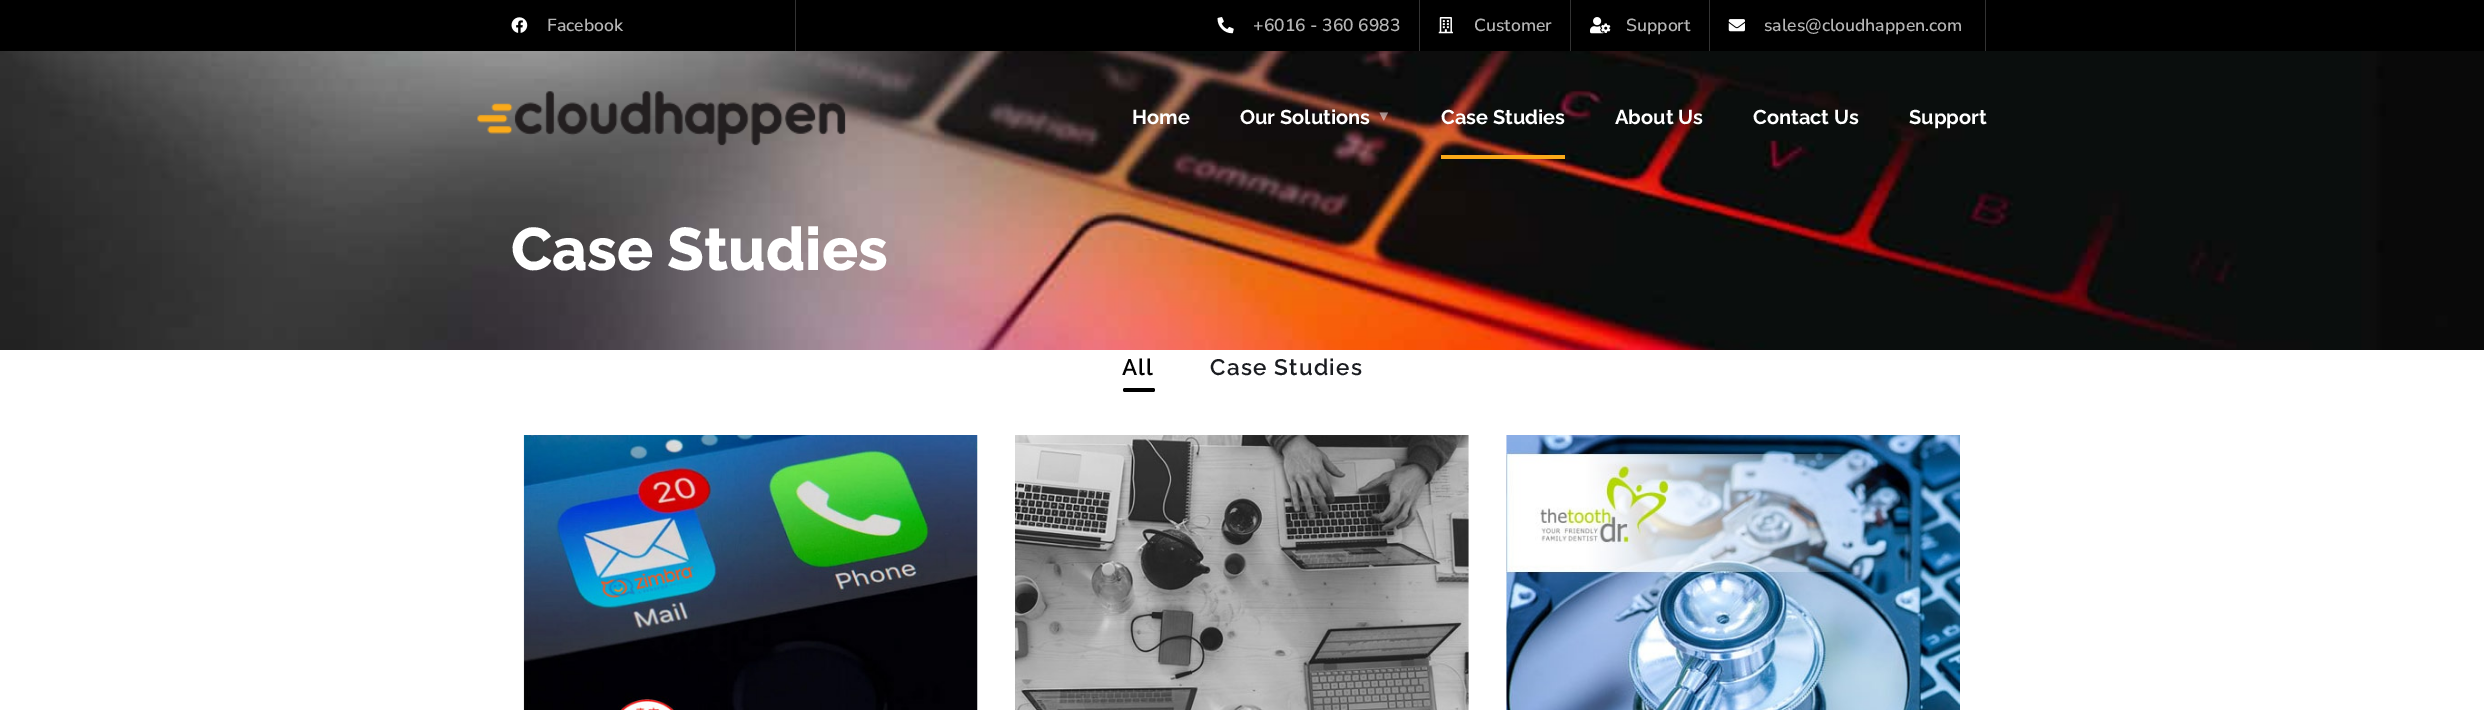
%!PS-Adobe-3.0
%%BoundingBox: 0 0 2484 710
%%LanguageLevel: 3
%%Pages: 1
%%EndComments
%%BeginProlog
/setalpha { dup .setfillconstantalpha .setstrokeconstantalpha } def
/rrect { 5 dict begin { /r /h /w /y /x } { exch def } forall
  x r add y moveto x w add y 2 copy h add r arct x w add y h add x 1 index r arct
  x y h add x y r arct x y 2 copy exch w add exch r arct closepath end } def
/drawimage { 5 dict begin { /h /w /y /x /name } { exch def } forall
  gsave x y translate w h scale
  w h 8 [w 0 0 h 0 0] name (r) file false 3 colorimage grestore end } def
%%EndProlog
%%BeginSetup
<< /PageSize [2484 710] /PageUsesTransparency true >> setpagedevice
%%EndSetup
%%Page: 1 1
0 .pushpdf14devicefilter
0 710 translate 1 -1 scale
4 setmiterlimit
1 setgray
0 0 2484 710 rectfill
0 setgray
0 0 2484 51 rectfill
0.2 setgray
795 0 1 51 rectfill
(images/1.raw) 511 17 17 16 drawimage
1985 0 1 51 rectfill
(images/2.raw) 1217 17 17 17 drawimage
1419 0 1 51 rectfill
(images/3.raw) 1438 17 15 17 drawimage
1570 0 1 51 rectfill
(images/4.raw) 1590 17 21 17 drawimage
1709 0 1 51 rectfill
(images/5.raw) 1728 19 17 13 drawimage
(images/7.raw) 0 51 2484 299 drawimage
(images/6.raw) 477 91 369 55 drawimage
0.5 setalpha
1 setgray
newpath 1384 120.5 moveto 1383.5 120.5 lineto 1379.5 112.5 lineto 1388 112.5 lineto closepath fill
1 setalpha
0.984 0.667 0.098 setrgbcolor
1441 155 124 4 rectfill
0 setgray
1123 388 32 4 2 rrect fill
(images/8.raw) 523 435 455 275 drawimage
(images/9.raw) 1015 435 454 275 drawimage
(images/10.raw) 1506 435 454 275 drawimage
/NunitoSans-SemiBold [17.5 0 0 -17.5 0 0] selectfont
0.71 setgray
547 31 moveto (Facebook) show
1253 31 moveto (+6016 - 360 6983) show
1474 31 moveto (Customer) show
1626 31 moveto (Support) show
1764 31 moveto (sales@cloudhappen.com) show
/Raleway-Bold [20 0 0 -20 0 0] selectfont
1 setgray
1132 124 moveto (Home) show
1240 124 moveto (Our Solutions) show
1441 124 moveto (Case Studies) show
1615 124 moveto (About Us) show
1753 124 moveto (Contact Us) show
1909 124 moveto (Support) show
/Raleway-ExtraBold [60 0 0 -60 0 0] selectfont
511 270 moveto (Case Studies) show
/Raleway-SemiBold [22.5 0 0 -22.5 0 0] selectfont
0 setgray
1122 375 moveto 1.25 0 (All) ashow
0.106 0.114 0.129 setrgbcolor
1210 375 moveto 1.25 0 (Case Studies) ashow
.poppdf14devicefilter showpage
%%EOF
